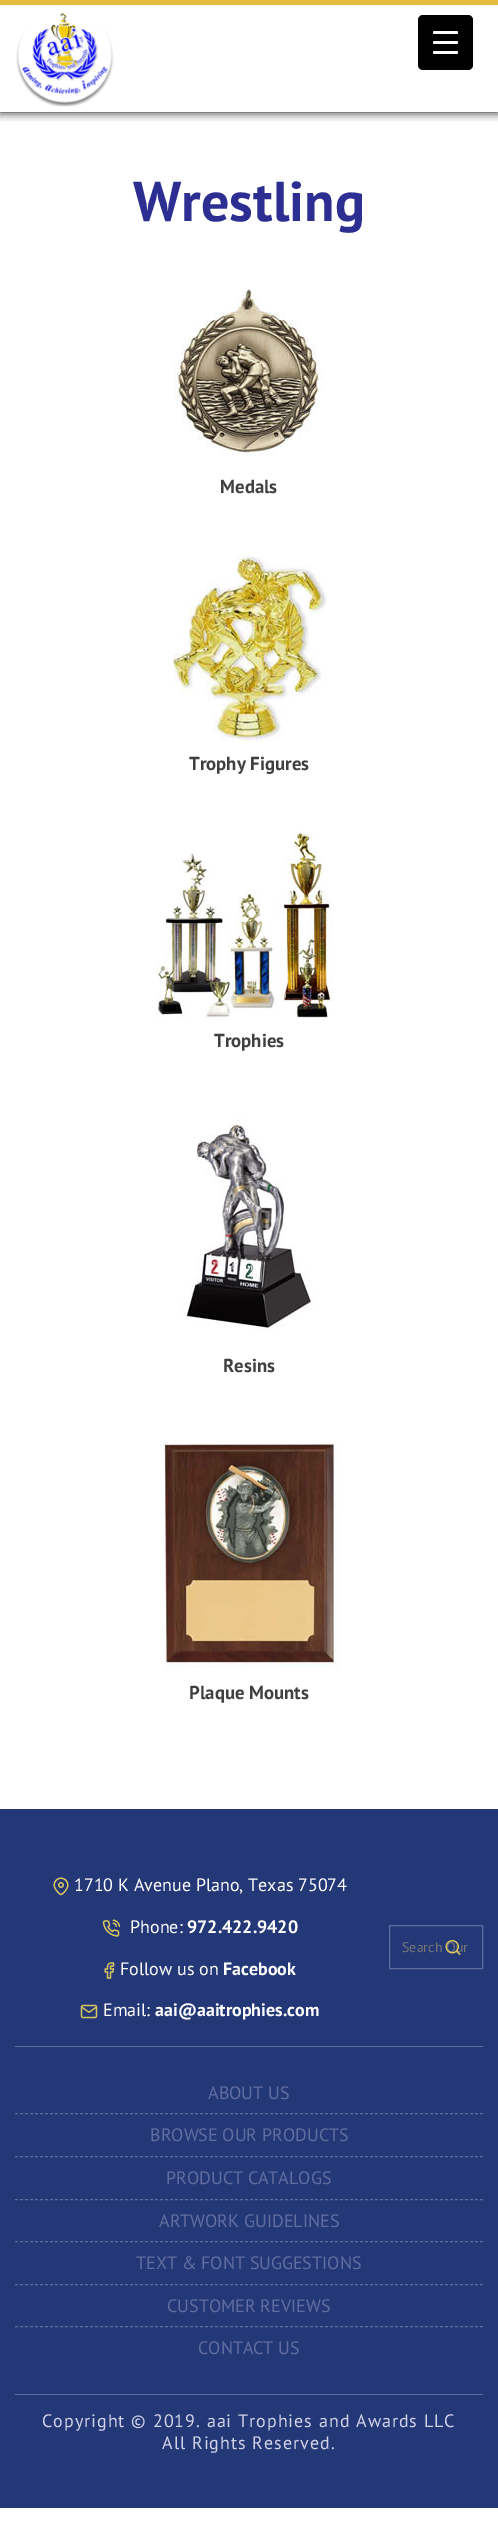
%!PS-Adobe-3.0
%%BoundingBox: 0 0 498 2543
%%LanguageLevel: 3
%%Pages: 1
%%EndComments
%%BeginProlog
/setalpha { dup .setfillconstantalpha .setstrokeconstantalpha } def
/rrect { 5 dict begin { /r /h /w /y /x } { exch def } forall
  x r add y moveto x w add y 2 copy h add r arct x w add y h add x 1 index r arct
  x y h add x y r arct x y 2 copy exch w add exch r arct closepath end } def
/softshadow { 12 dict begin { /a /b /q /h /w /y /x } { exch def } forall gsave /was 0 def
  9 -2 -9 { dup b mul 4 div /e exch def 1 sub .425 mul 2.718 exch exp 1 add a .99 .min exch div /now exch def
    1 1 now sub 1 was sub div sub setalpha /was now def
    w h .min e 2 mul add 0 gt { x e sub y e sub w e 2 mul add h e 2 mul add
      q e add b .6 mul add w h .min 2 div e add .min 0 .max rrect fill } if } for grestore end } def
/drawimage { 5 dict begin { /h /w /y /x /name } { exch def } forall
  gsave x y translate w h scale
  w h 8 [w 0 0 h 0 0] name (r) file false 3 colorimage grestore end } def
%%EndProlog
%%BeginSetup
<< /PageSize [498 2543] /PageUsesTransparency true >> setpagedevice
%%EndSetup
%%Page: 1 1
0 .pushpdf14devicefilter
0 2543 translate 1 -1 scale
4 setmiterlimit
1 setgray
0 0 498 2543 rectfill
gsave
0 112 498 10 rectclip
0 setgray
0 0 498 112 0 5 1 softshadow
grestore
0 setgray
418 15 55 55 5 rrect fill
1 setgray
433 41 25 3 1.5 rrect fill
433 31 25 3 1.5 rrect fill
433 51 25 3 1.5 rrect fill
0.902 0.741 0.239 setrgbcolor
0 0 498 5 rectfill
(images/1.raw) 16 12 98 95 drawimage
(images/2.raw) 173 288 151 168 drawimage
(images/3.raw) 173 556 154 185 drawimage
(images/4.raw) 157 827 176 191 drawimage
(images/5.raw) 181 1118 135 216 drawimage
(images/6.raw) 164 1444 177 224 drawimage
0.141 0.22 0.467 setrgbcolor
0 1809 498 699 rectfill
0.38 0.427 0.624 setrgbcolor
15 2046 468 1 rectfill
(images/7.raw) 53 1877 16 19 drawimage
(images/8.raw) 102 1919 18 18 drawimage
(images/9.raw) 104 1962 11 17 drawimage
(images/10.raw) 80 2004 18 15 drawimage
389.5 1925.5 93 43 rectstroke
[3 2] 0 setdash
newpath 15 2113.5 moveto 483 2113.5 lineto stroke
newpath 15 2156.5 moveto 483 2156.5 lineto stroke
newpath 15 2199.5 moveto 483 2199.5 lineto stroke
newpath 15 2241.5 moveto 483 2241.5 lineto stroke
newpath 15 2284.5 moveto 483 2284.5 lineto stroke
newpath 15 2326.5 moveto 483 2326.5 lineto stroke
15 2394 468 1 rectfill
/PTSans-Bold [56 0 0 -56 0 0] selectfont
0.173 0.18 0.569 setrgbcolor
133 221 moveto (Wrestling) show
/PTSans-Bold [18.75 0 0 -18.75 0 0] selectfont
0.251 setgray
220 493 moveto (Medals) show
189 770 moveto (Trophy Figures) show
214 1047 moveto (Trophies) show
223 1372 moveto (Resins) show
189 1699 moveto (Plaque Mounts) show
/PTSans-Regular [18 0 0 -18 0 0] selectfont
1 setgray
74 1891 moveto (1710 K Avenue Plano, Texas 75074) show
130 1933 moveto (Phone:) show
/PTSans-Bold [18 0 0 -18 0 0] selectfont
187 1933 moveto (972.422.9420) show
/PTSans-Regular [18 0 0 -18 0 0] selectfont
120 1975 moveto (Follow us on) show
/PTSans-Bold [18 0 0 -18 0 0] selectfont
223 1975 moveto (Facebook) show
/PTSans-Regular [18 0 0 -18 0 0] selectfont
103 2016 moveto (Email:) show
/PTSans-Bold [18 0 0 -18 0 0] selectfont
155 2016 moveto (aai@aaitrophies.com) show
/PTSans-Regular [14 0 0 -14 0 0] selectfont
0.459 setgray
402 1952 moveto (Search Our) show
(images/11.raw) 445 1940 16 15 drawimage
/PTSans-Regular [18 0 0 -18 0 0] selectfont
0.38 0.427 0.624 setrgbcolor
208 2099 moveto (ABOUT US) show
150 2141 moveto (BROWSE OUR PRODUCTS) show
166 2184 moveto (PRODUCT CATALOGS) show
159 2227 moveto (ARTWORK GUIDELINES) show
136 2269 moveto (TEXT & FONT SUGGESTIONS) show
167 2312 moveto (CUSTOMER REVIEWS) show
198 2354 moveto (CONTACT US) show
0.82 0.827 0.914 setrgbcolor
42 2427 moveto 1 0 (Copyright © 2019. aai Trophies and Awards LLC) ashow
162 2449 moveto 1 0 (All Rights Reserved.) ashow
.poppdf14devicefilter showpage
%%EOF
